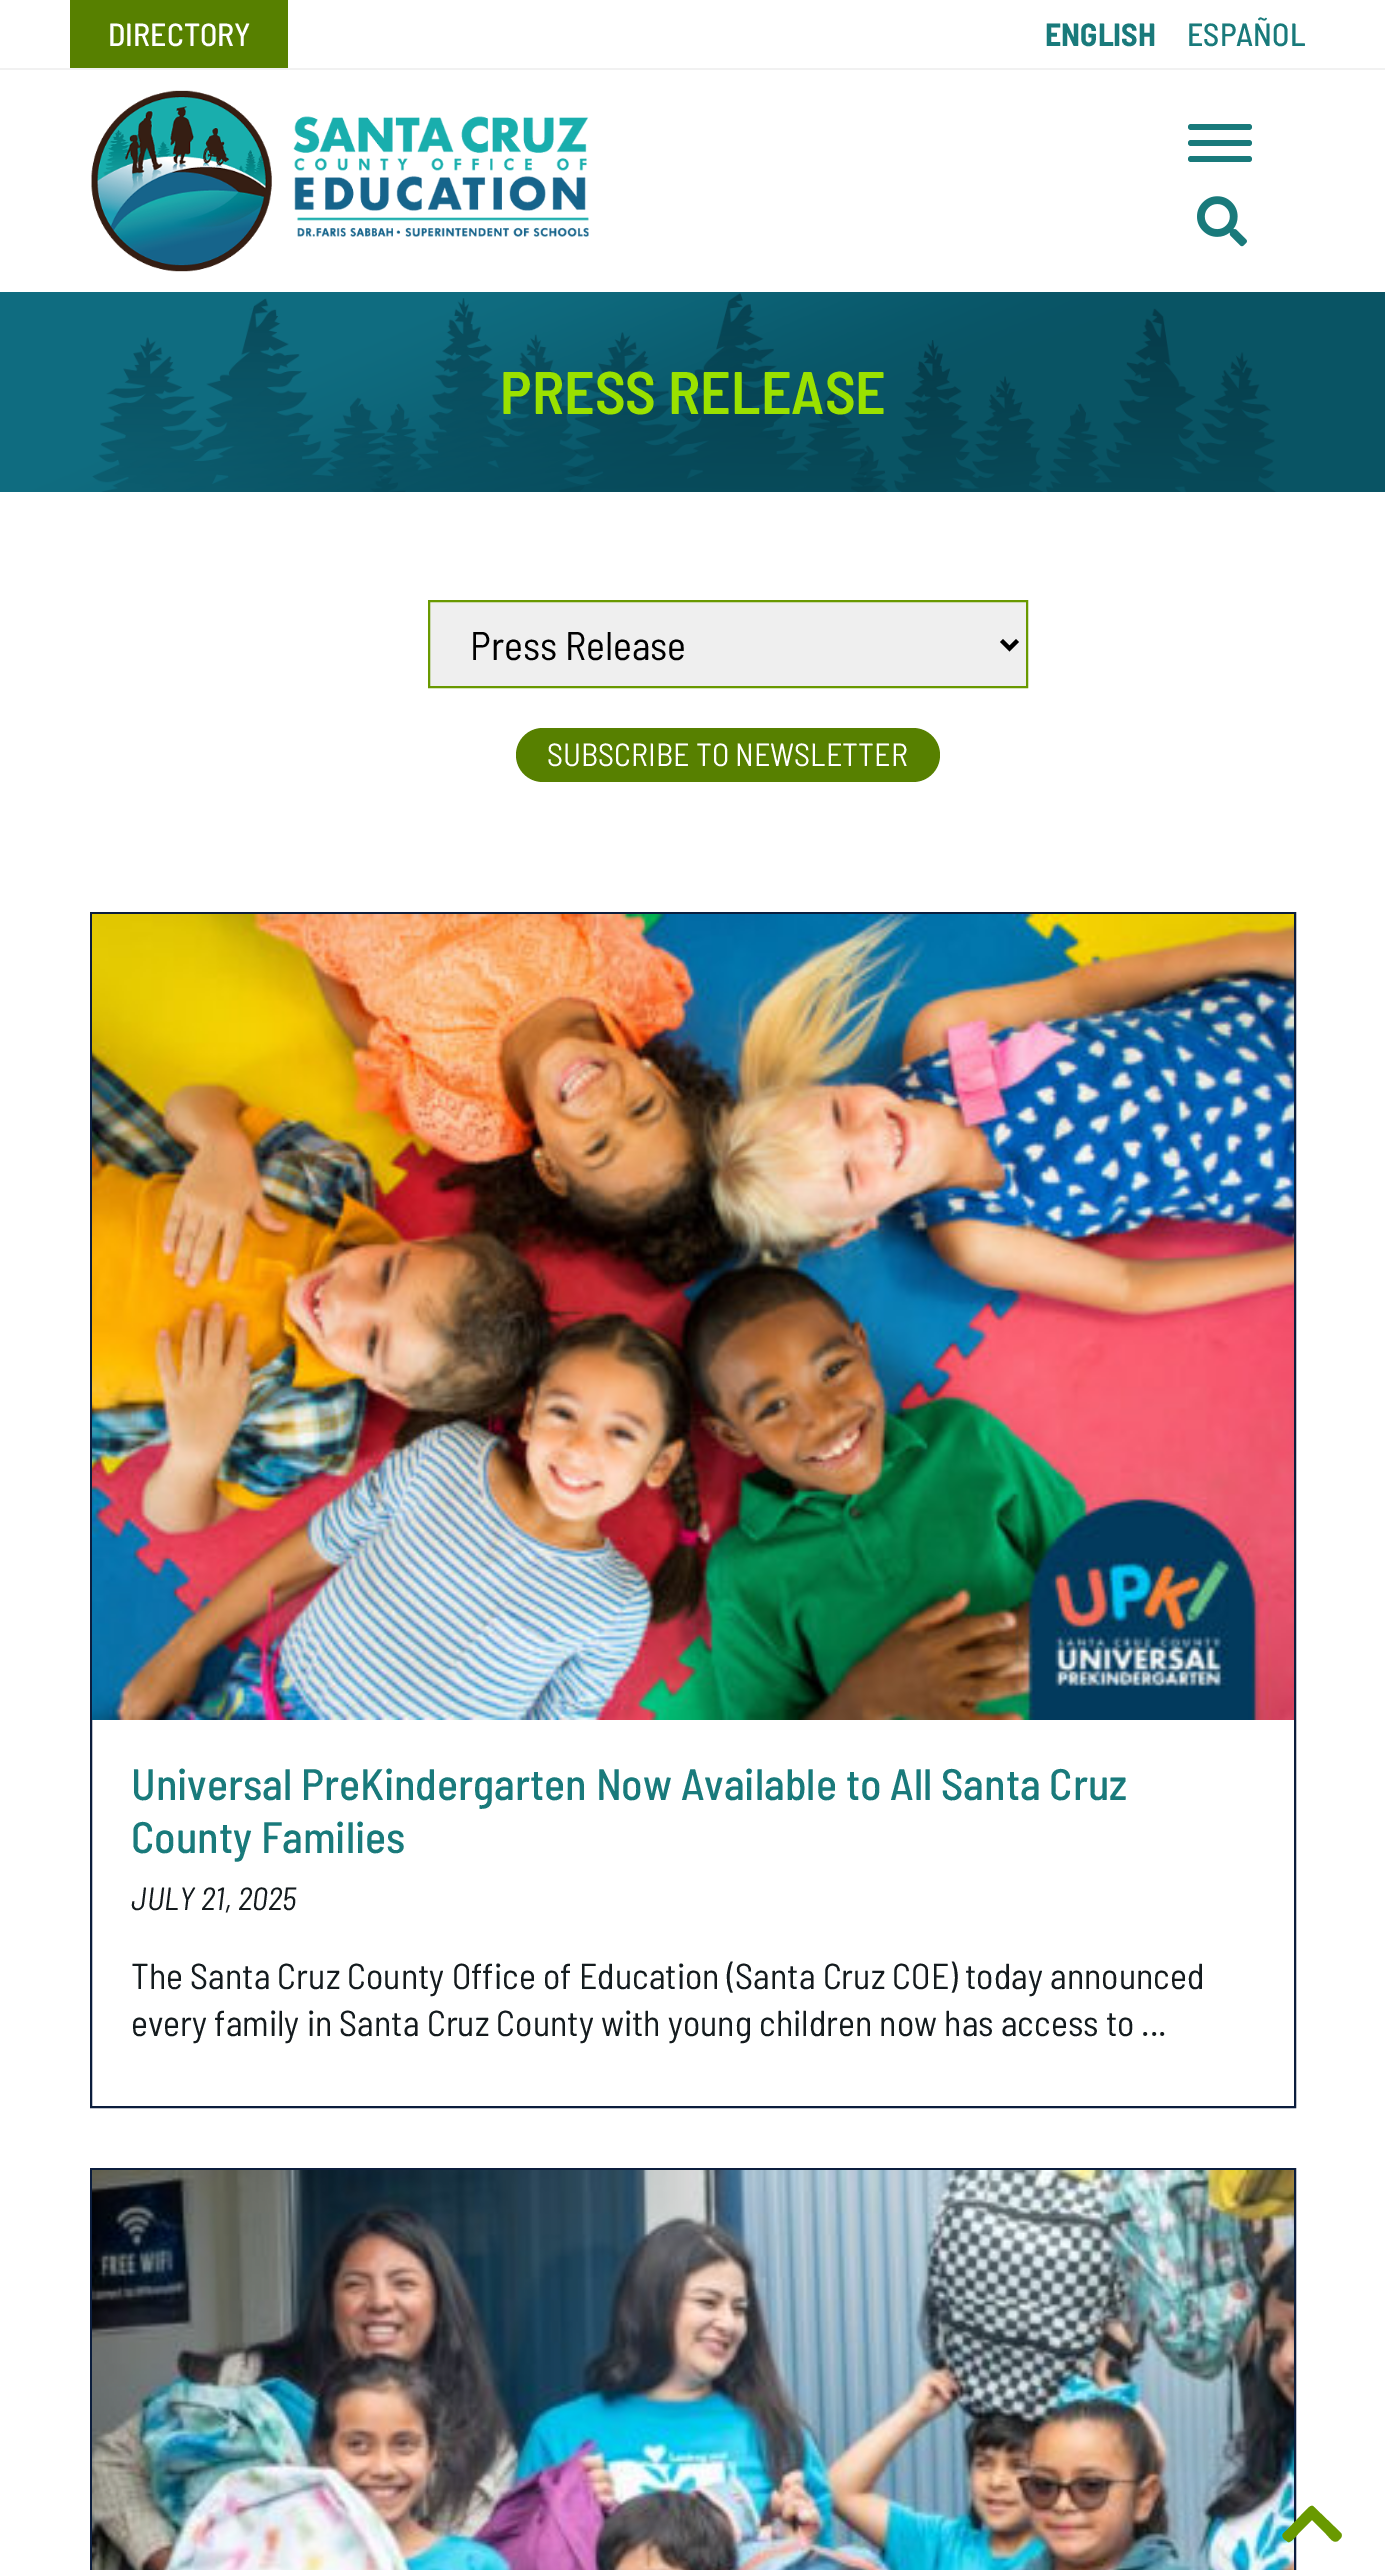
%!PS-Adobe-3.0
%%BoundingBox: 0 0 1385 2570
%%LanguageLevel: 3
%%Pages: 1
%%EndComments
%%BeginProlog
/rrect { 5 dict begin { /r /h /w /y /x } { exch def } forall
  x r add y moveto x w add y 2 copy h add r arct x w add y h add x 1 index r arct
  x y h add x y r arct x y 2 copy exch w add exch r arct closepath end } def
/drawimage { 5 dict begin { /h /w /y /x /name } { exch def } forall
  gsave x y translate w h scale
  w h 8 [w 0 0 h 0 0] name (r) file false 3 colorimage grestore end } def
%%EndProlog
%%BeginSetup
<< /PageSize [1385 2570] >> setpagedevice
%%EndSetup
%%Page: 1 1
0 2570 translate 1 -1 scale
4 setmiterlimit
1 setgray
0 0 1385 2570 rectfill
0.945 setgray
0 68 1385 2 rectfill
0.341 0.502 0 setrgbcolor
70 0 218 68 rectfill
(images/1.raw) 91 90 498 182 drawimage
0.098 0.478 0.482 setrgbcolor
1188 124 64 6 3 rrect fill
1188 140 64 6 3 rrect fill
1188 156 64 6 3 rrect fill
(images/2.raw) 1197 196 50 51 drawimage
(images/3.raw) 0 292 1385 200 drawimage
0.937 setgray
newpath 429 601 moveto 1027 601 lineto 1027 687 lineto 429 687 lineto closepath gsave fill grestore
0.412 0.6 0 setrgbcolor
2 setlinewidth
stroke
0 setgray
4 setlinewidth
newpath 1001.5 640.5 moveto 1009.5 648.5 lineto 1017.5 640.5 lineto stroke
0.341 0.502 0 setrgbcolor
516 728 424 54 27 rrect fill
0.043 0.114 0.239 setrgbcolor
2 setlinewidth
91 913 1204 1194 rectstroke
(images/4.raw) 92 914 1202 806 drawimage
91 2169 1204 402 rectstroke
(images/5.raw) 92 2170 1202 400 drawimage
0.412 0.6 0 setrgbcolor
newpath 1314 2507 moveto 1341 2533 lineto 1343 2536 1341 2538 1339 2540 curveto 1334 2545 1330 2538 1326 2534 curveto 1312 2520 lineto 1298 2534 lineto 1296 2536 1291 2543 1288 2542 curveto 1284 2539 lineto 1280 2534 1284 2533 1288 2529 curveto 1305 2511 lineto 1307 2510 1311 2503 1314 2507 curveto closepath fill
/BarlowSemiCondensed-Medium [32 0 0 -32 0 0] selectfont
1 setgray
108 46 moveto (DIRECTORY) show
/BarlowSemiCondensed-Bold [32 0 0 -32 0 0] selectfont
0.098 0.478 0.482 setrgbcolor
1045 46 moveto (ENGLISH) show
/BarlowSemiCondensed-Medium [32 0 0 -32 0 0] selectfont
1187 46 moveto (ESPAÑOL) show
/BarlowSemiCondensed-SemiBold [60 0 0 -60 0 0] selectfont
0.604 0.882 0 setrgbcolor
500 414 moveto (PRESS RELEASE) show
/BarlowSemiCondensed-Regular [40 0 0 -40 0 0] selectfont
0 setgray
470 660 moveto (Press Release) show
/BarlowSemiCondensed-Regular [32 0 0 -32 0 0] selectfont
1 setgray
547 766 moveto (SUBSCRIBE TO NEWSLETTER) show
/BarlowSemiCondensed-Medium [44 0 0 -44 0 0] selectfont
0.098 0.478 0.482 setrgbcolor
131 1800 moveto (Universal PreKindergarten Now Available to All Santa Cruz) show
131 1853 moveto (County Families) show
/BarlowSemiCondensed-Italic [32 0 0 -32 0 0] selectfont
0.078 0.106 0.118 setrgbcolor
131 1910 moveto (JULY 21, 2025) show
/BarlowSemiCondensed-Regular [36 0 0 -36 0 0] selectfont
131 1989 moveto (The Santa Cruz County Office of Education \(Santa Cruz COE\) today announced) show
131 2036 moveto (every family in Santa Cruz County with young children now has access to ...) show
showpage
%%EOF
